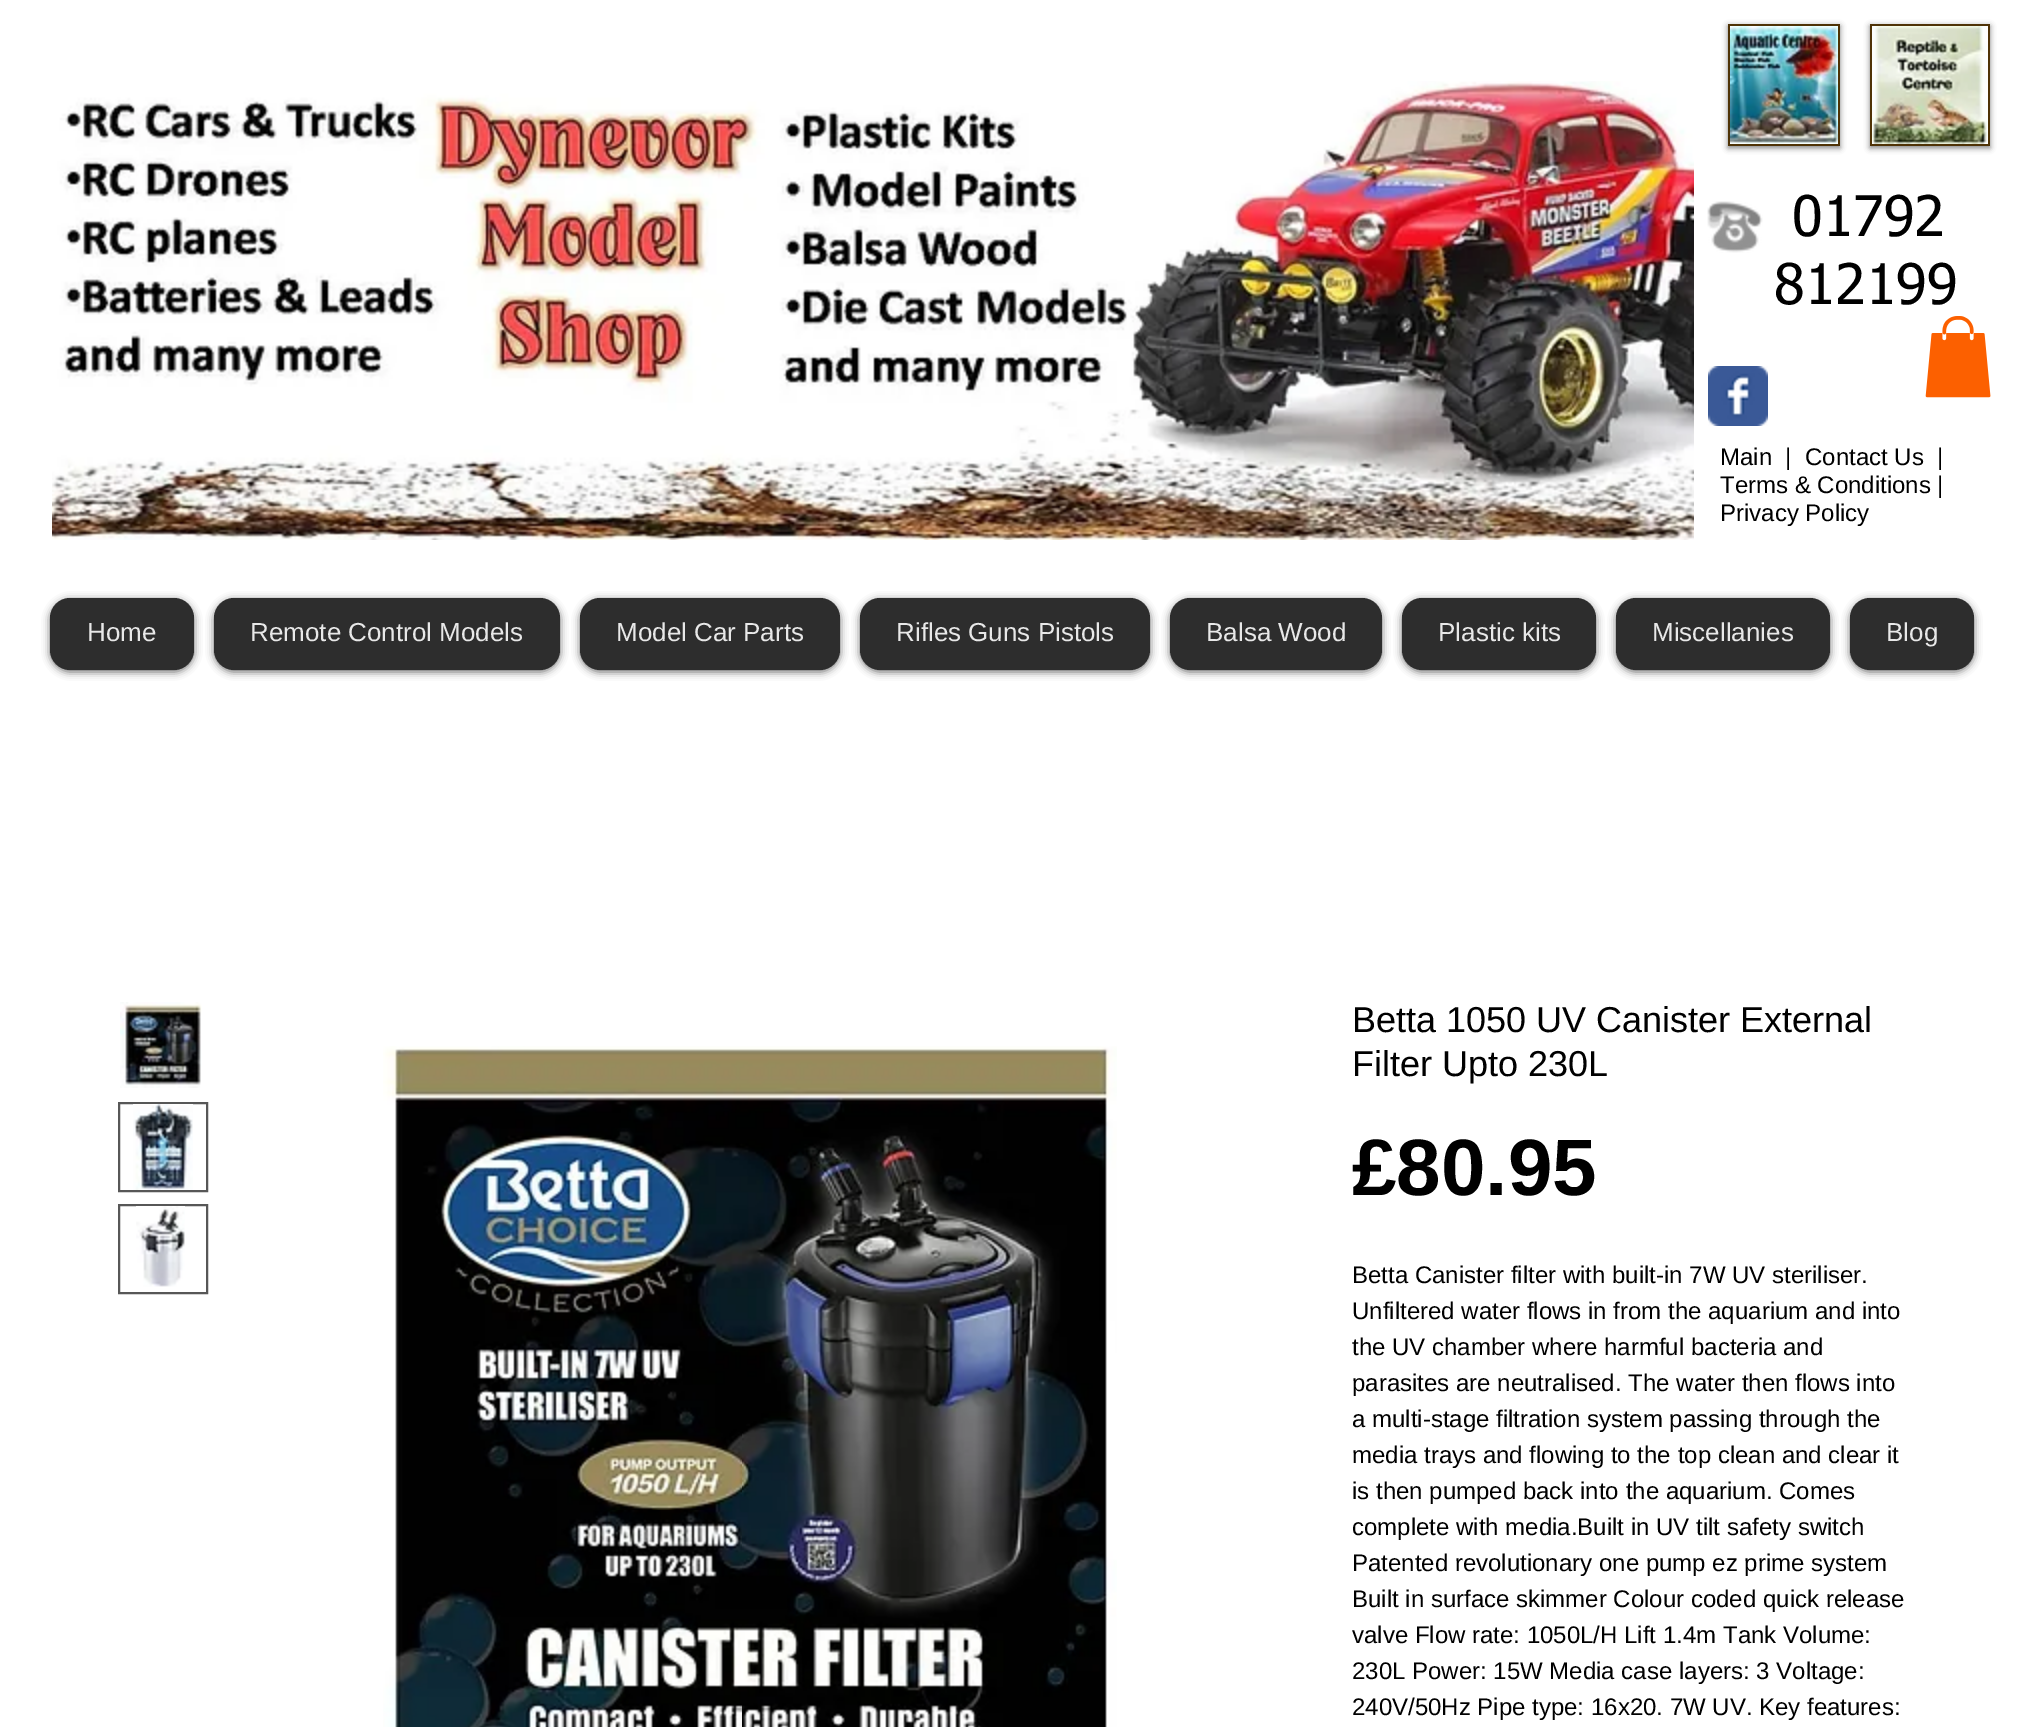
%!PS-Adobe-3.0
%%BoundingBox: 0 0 2023 1727
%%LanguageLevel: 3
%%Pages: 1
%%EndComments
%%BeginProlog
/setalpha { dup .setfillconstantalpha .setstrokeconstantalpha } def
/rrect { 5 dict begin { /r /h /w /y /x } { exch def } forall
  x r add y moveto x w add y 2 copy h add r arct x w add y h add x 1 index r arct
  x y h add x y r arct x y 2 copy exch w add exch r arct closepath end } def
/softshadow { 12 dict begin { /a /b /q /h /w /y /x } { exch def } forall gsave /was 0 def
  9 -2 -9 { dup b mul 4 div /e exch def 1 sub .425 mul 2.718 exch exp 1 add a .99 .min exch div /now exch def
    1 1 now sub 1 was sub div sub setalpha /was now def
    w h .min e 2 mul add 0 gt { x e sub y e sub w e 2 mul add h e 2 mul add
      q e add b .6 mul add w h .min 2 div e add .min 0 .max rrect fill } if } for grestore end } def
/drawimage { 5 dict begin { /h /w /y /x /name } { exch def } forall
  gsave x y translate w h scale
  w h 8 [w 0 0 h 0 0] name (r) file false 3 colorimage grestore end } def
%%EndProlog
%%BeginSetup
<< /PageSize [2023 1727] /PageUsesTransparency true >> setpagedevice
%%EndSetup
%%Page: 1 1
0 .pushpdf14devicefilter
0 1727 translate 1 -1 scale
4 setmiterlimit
1 setgray
0 0 2023 1727 rectfill
(images/1.raw) 52 81 1642 459 drawimage
0 setgray
1728 26 112 122 0 3 0.5 softshadow
0.31 0.2 0.024 setrgbcolor
1728 24 112 122 rectfill
(images/2.raw) 1730 26 108 118 drawimage
0 setgray
1870 26 120 122 0 3 0.5 softshadow
0.31 0.2 0.024 setrgbcolor
1870 24 120 122 rectfill
(images/3.raw) 1872 26 116 118 drawimage
(images/4.raw) 1707 201 56 52 drawimage
(images/5.raw) 1708 366 60 60 drawimage
(images/6.raw) 1925 316 66 82 drawimage
0 setgray
50 600 144 72 20 4 0.6 softshadow
0.176 setgray
50 598 144 72 20 rrect fill
0 setgray
214 600 346 72 20 4 0.6 softshadow
0.176 setgray
214 598 346 72 20 rrect fill
0 setgray
580 600 260 72 20 4 0.6 softshadow
0.176 setgray
580 598 260 72 20 rrect fill
0 setgray
860 600 290 72 20 4 0.6 softshadow
0.176 setgray
860 598 290 72 20 rrect fill
0 setgray
1170 600 212 72 20 4 0.6 softshadow
0.176 setgray
1170 598 212 72 20 rrect fill
0 setgray
1402 600 194 72 20 4 0.6 softshadow
0.176 setgray
1402 598 194 72 20 rrect fill
0 setgray
1616 600 214 72 20 4 0.6 softshadow
0.176 setgray
1616 598 214 72 20 rrect fill
0 setgray
1850 600 124 72 20 4 0.6 softshadow
0.176 setgray
1850 598 124 72 20 rrect fill
(images/7.raw) 120 1002 82 86 drawimage
0.341 setgray
2 setlinewidth
119 1103 88 88 rectstroke
(images/8.raw) 133 1104 60 86 drawimage
119 1205 88 88 rectstroke
(images/9.raw) 136 1206 49 81 drawimage
(images/10.raw) 383 1046 734 681 drawimage
/tahoma-Regular [56 0 0 -56 0 0] selectfont
0 setgray
1792 236 moveto (01792) show
1774 304 moveto (812199) show
/LiberationSans-Regular [24 0 0 -24 0 0] selectfont
1720 465 moveto (Main) show
1785 465 moveto (|) show
1805 465 moveto (Contact Us) show
1937 465 moveto (|) show
1720 493 moveto (Terms & Conditions |) show
1720 521 moveto (Privacy Policy) show
/LiberationSans-Regular [26 0 0 -26 0 0] selectfont
0.91 setgray
87 641 moveto (Home) show
250 641 moveto (Remote Control Models) show
616 641 moveto (Model Car Parts) show
896 641 moveto (Rifles Guns Pistols) show
1206 641 moveto (Balsa Wood) show
1438 641 moveto (Plastic kits) show
1652 641 moveto (Miscellanies) show
1886 641 moveto (Blog) show
/LiberationSans-Regular [36 0 0 -36 0 0] selectfont
0 setgray
1352 1032 moveto (Betta 1050 UV Canister External) show
1352 1076 moveto (Filter Upto 230L) show
/LiberationSans-Bold [80 0 0 -80 0 0] selectfont
1352 1195 moveto (£80.95) show
/LiberationSans-Regular [24 0 0 -24 0 0] selectfont
1352 1283 moveto (Betta Canister filter with built-in 7W UV steriliser.) show
1352 1319 moveto (Unfiltered water flows in from the aquarium and into) show
1352 1355 moveto (the UV chamber where harmful bacteria and) show
1352 1391 moveto (parasites are neutralised. The water then flows into) show
1352 1427 moveto (a multi-stage filtration system passing through the) show
1352 1463 moveto (media trays and flowing to the top clean and clear it) show
1352 1499 moveto (is then pumped back into the aquarium. Comes) show
1352 1535 moveto (complete with media.Built in UV tilt safety switch) show
1352 1571 moveto (Patented revolutionary one pump ez prime system) show
1352 1607 moveto (Built in surface skimmer Colour coded quick release) show
1352 1643 moveto (valve Flow rate: 1050L/H Lift 1.4m Tank Volume:) show
1352 1679 moveto (230L Power: 15W Media case layers: 3 Voltage:) show
1352 1715 moveto (240V/50Hz Pipe type: 16x20. 7W UV. Key features:) show
.poppdf14devicefilter showpage
%%EOF
